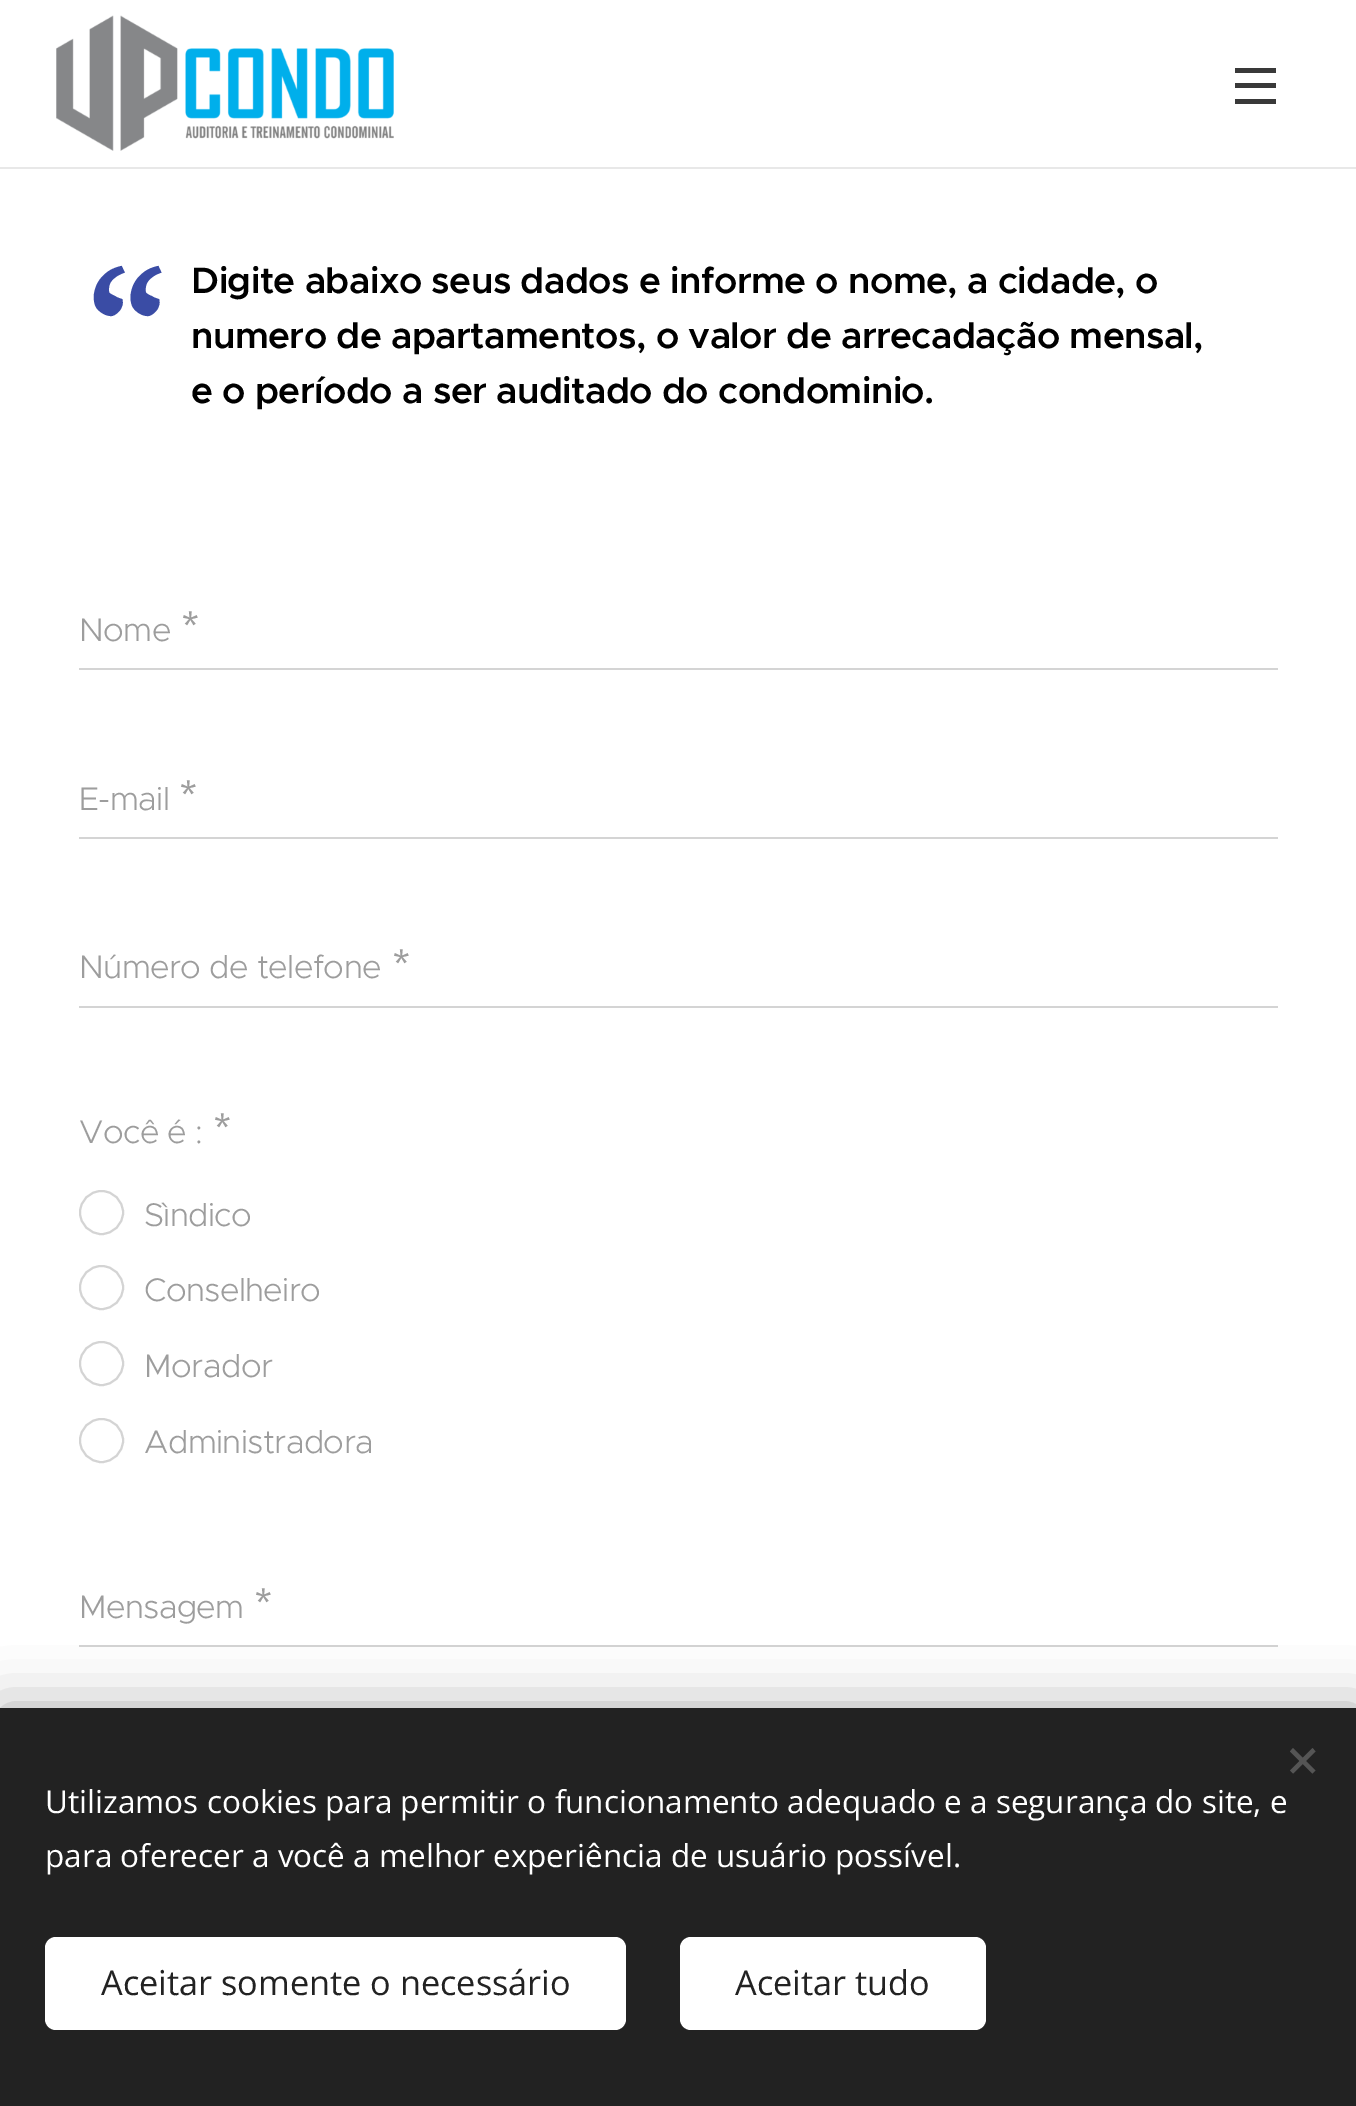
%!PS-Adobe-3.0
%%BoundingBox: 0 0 1356 2106
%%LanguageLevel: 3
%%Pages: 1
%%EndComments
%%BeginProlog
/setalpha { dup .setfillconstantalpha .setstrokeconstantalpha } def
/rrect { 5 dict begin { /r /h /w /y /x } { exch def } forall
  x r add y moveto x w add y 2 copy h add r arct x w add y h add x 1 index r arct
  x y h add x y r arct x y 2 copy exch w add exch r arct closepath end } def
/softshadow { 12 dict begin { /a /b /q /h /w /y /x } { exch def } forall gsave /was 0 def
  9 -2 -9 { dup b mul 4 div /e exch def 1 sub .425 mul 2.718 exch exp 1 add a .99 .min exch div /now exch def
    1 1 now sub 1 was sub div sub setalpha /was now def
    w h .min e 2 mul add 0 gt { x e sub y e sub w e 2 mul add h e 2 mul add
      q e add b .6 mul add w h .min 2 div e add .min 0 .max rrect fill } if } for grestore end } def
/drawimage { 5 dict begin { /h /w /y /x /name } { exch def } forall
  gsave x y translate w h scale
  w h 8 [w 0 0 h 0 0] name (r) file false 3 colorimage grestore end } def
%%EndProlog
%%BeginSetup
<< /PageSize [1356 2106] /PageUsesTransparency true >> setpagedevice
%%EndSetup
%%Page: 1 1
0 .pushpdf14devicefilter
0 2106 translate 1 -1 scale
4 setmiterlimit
1 setgray
0 0 1356 2106 rectfill
0.91 setgray
0 167 1356 2 rectfill
(images/1.raw) 56 15 338 136 drawimage
0.224 setgray
1235 83 41 5 rectfill
1235 68 41 5 rectfill
1235 99 41 5 rectfill
0.831 setgray
79 668 1199 2 rectfill
79 837 1199 2 rectfill
79 1006 1199 2 rectfill
2 setlinewidth
newpath 101.5 1212.5 21.5 0 360 arc closepath stroke
newpath 101.5 1287.5 21.5 0 360 arc closepath stroke
newpath 101.5 1363.5 21.5 0 360 arc closepath stroke
newpath 101.5 1440.5 21.5 0 360 arc closepath stroke
79 1645 1199 2 rectfill
0 setgray
0 1708 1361 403 0 28 0.33 softshadow
0.133 setgray
0 1708 1356 398 rectfill
0.333 setgray
newpath 1290 1770.5 moveto 1312.5 1748 lineto 1315.5 1751.5 lineto 1293 1773.5 lineto closepath fill
newpath 1293 1748 moveto 1315.5 1770.5 lineto 1312.5 1773.5 lineto 1290 1751.5 lineto closepath fill
1 setgray
45 1937 581 93 11 rrect fill
680 1937 306 93 11 rrect fill
/PTSerif-Regular [202 0 0 -202 0 0] selectfont
0.227 0.298 0.647 setrgbcolor
79 432 moveto -0.6 0 (“) ashow
/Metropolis-SemiBold [36.9 0 0 -36.9 0 0] selectfont
0 setgray
191 293 moveto -0.55 0 (Digite abaixo seus dados e informe o nome, a cidade, o) ashow
191 348 moveto -0.55 0 (numero de apartamentos, o valor de arrecadação mensal,) ashow
191 403 moveto -0.55 0 (e o período a ser auditado do condominio.) ashow
/Metropolis-Light [32.75 0 0 -32.75 0 0] selectfont
0.616 setgray
79 641 moveto -0.6 0 (Nome) ashow
/RobotoFlex-Regular [31.5 0 0 -31.5 0 0] selectfont
182 634 moveto -0.6 0 (*) ashow
/Metropolis-Light [32.75 0 0 -32.75 0 0] selectfont
79 810 moveto -0.6 0 (E-mail) ashow
/RobotoFlex-Regular [31.5 0 0 -31.5 0 0] selectfont
180 803 moveto -0.6 0 (*) ashow
/Metropolis-Light [32.75 0 0 -32.75 0 0] selectfont
79 978 moveto -0.6 0 (Número de telefone) ashow
/RobotoFlex-Regular [31.5 0 0 -31.5 0 0] selectfont
393 972 moveto -0.6 0 (*) ashow
/Metropolis-Light [32.75 0 0 -32.75 0 0] selectfont
79 1143 moveto -0.6 0 (Você é :) ashow
/RobotoFlex-Regular [31.5 0 0 -31.5 0 0] selectfont
214 1136 moveto -0.6 0 (*) ashow
/Metropolis-Light [32.75 0 0 -32.75 0 0] selectfont
144 1226 moveto -0.6 0 (Sìndico) ashow
144 1301 moveto -0.6 0 (Conselheiro) ashow
144 1377 moveto -0.6 0 (Morador) ashow
144 1453 moveto -0.6 0 (Administradora) ashow
79 1618 moveto -0.6 0 (Mensagem) ashow
/RobotoFlex-Regular [31.5 0 0 -31.5 0 0] selectfont
255 1611 moveto -0.6 0 (*) ashow
/OpenSans-Regular [31.5 0 0 -31.5 0 0] selectfont
1 setgray
45 1813 moveto (Utilizamos cookies para permitir o funcionamento adequado e a segurança do site, e) show
45 1867 moveto (para oferecer a você a melhor experiência de usuário possível.) show
/OpenSans-Regular [34.25 0 0 -34.25 0 0] selectfont
0.133 setgray
101 1995 moveto (Aceitar somente o necessário) show
735 1995 moveto (Aceitar tudo) show
.poppdf14devicefilter showpage
%%EOF
